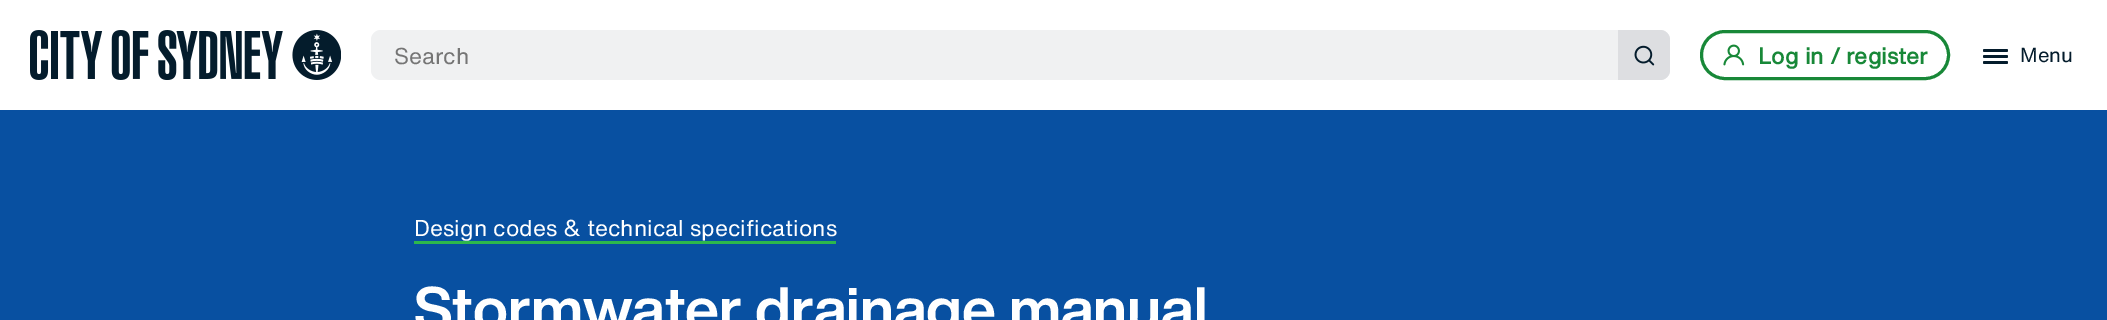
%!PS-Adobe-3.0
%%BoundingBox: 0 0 2107 320
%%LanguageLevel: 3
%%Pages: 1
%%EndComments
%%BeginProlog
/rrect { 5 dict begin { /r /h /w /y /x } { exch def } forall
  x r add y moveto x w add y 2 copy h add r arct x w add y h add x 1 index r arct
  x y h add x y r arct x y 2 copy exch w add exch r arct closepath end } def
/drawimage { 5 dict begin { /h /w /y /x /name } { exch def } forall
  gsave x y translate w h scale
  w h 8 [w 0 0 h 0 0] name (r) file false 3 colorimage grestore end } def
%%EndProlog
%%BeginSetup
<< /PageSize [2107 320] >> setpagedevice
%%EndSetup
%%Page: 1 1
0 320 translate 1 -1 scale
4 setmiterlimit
1 setgray
0 0 2107 320 rectfill
(images/1.raw) 30 30 311 50 drawimage
0.941 0.945 0.949 setrgbcolor
371 30 1299 50 10 rrect fill
0.867 0.871 0.882 setrgbcolor
newpath 1618 30 moveto 1660 30 lineto 1665.5 30 1670 34.5 1670 40 curveto 1670 70 lineto 1670 75.5 1665.5 80 1660 80 curveto 1618 80 lineto closepath fill
(images/2.raw) 1634 45 21 21 drawimage
0.094 0.533 0.22 setrgbcolor
3 setlinewidth
1701.5 31.5 247 47 23.5 rrect stroke
(images/3.raw) 1723 44 22 22 drawimage
0.016 0.11 0.173 setrgbcolor
1983 49 25 3 1.5 rrect fill
1983 55 25 3 1.5 rrect fill
1983 61 25 3 1.5 rrect fill
0.031 0.314 0.631 setrgbcolor
0 110 2107 210 rectfill
0.176 0.722 0.294 setrgbcolor
414 241 422 3 rectfill
/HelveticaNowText-Regular [22.5 0 0 -22.5 0 0] selectfont
0.459 setgray
394 64 moveto (Search) show
/HelveticaNowText-Bold [22.5 0 0 -22.5 0 0] selectfont
0.094 0.533 0.22 setrgbcolor
1758 64 moveto (Log in / register) show
/HelveticaNowText-Regular [20 0 0 -20 0 0] selectfont
0.016 0.11 0.173 setrgbcolor
2020 62 moveto (Menu) show
/HelveticaNowText-Regular [22.5 0 0 -22.5 0 0] selectfont
1 setgray
414 236 moveto (Design codes & technical specifications) show
/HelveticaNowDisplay-Bold [60 0 0 -60 0 0] selectfont
414 330 moveto (Stormwater drainage manual) show
showpage
%%EOF
